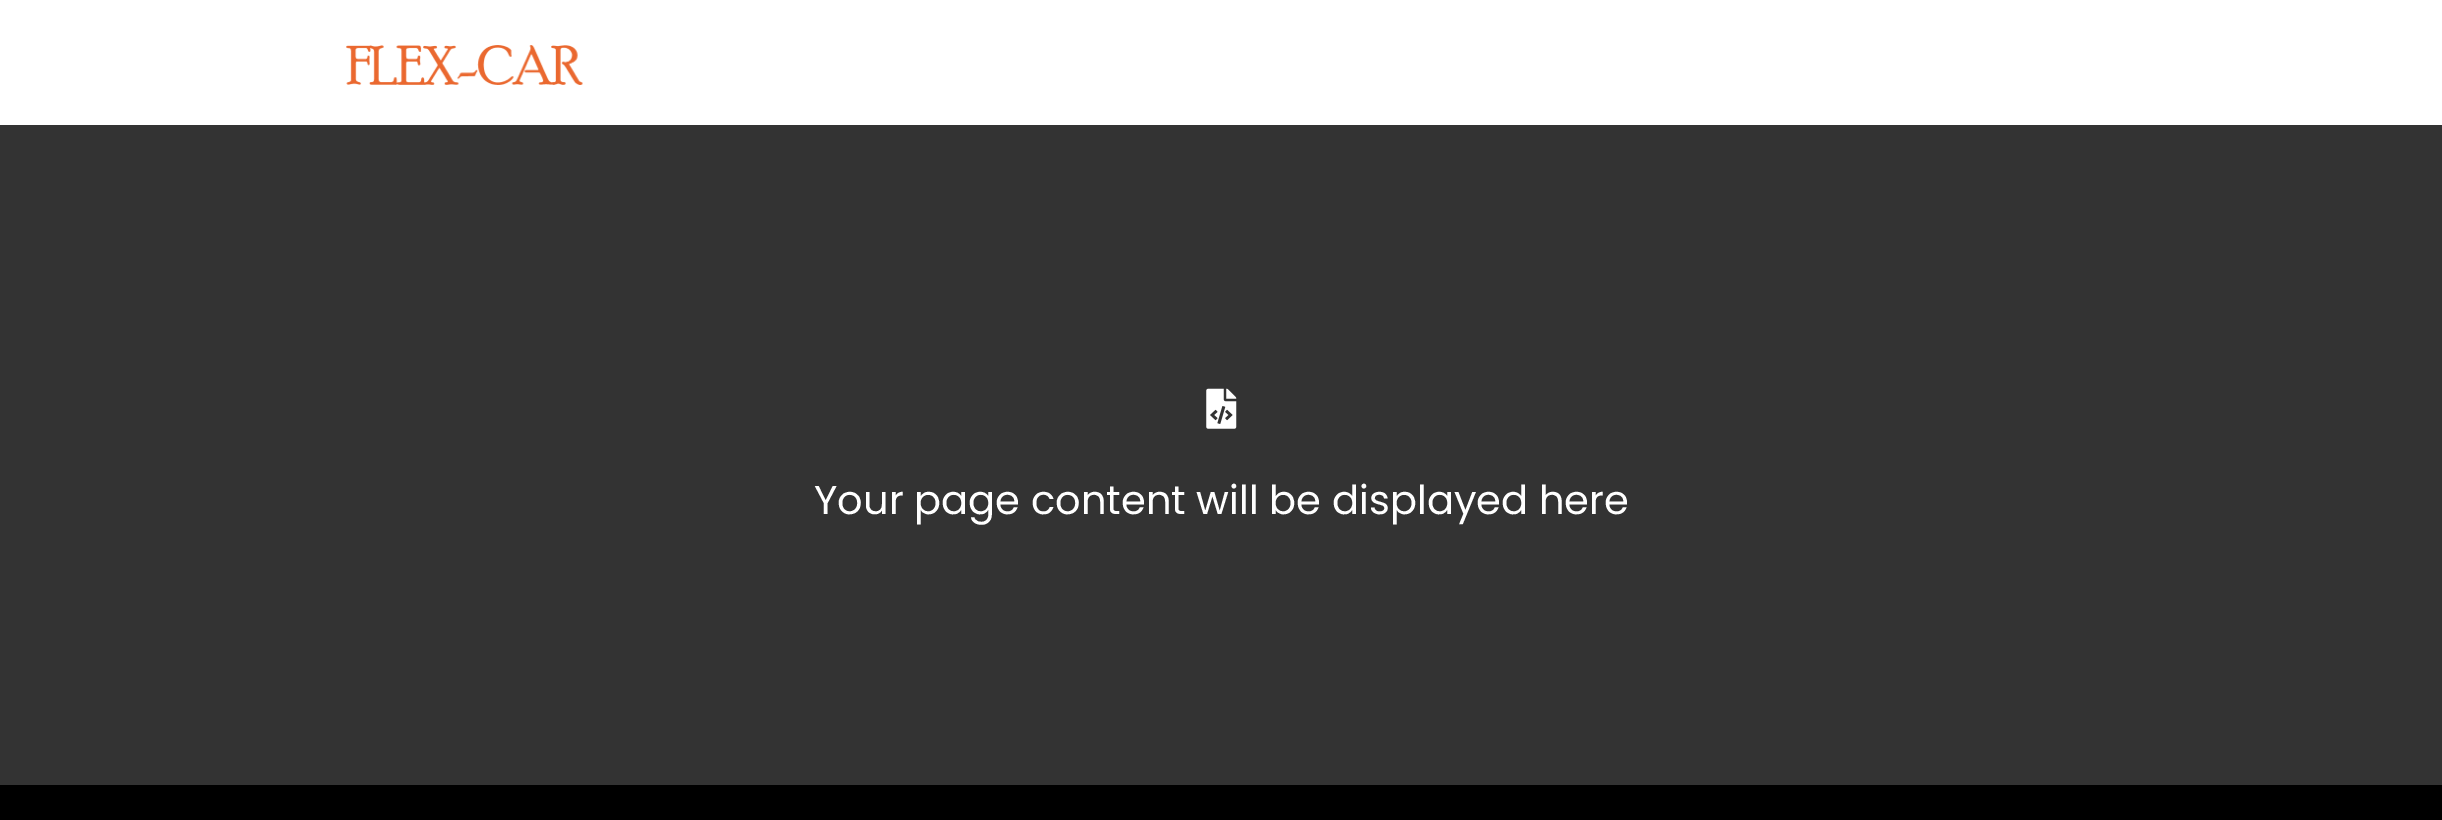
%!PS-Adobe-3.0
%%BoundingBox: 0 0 2442 820
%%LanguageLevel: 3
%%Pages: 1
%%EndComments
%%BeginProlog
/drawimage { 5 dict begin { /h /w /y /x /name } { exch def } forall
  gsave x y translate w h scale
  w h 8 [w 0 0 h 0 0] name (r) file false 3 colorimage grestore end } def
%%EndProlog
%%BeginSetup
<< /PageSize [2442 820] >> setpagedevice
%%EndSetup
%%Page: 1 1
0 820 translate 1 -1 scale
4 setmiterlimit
1 setgray
0 0 2442 820 rectfill
(images/1.raw) 346 45 237 40 drawimage
0.2 setgray
0 125 2442 660 rectfill
(images/2.raw) 1206 388 31 41 drawimage
0 setgray
0 785 2442 35 rectfill
/Poppins-Regular [40 0 0 -40 0 0] selectfont
1 setgray
814 514 moveto (Your page content will be displayed here) show
showpage
%%EOF
